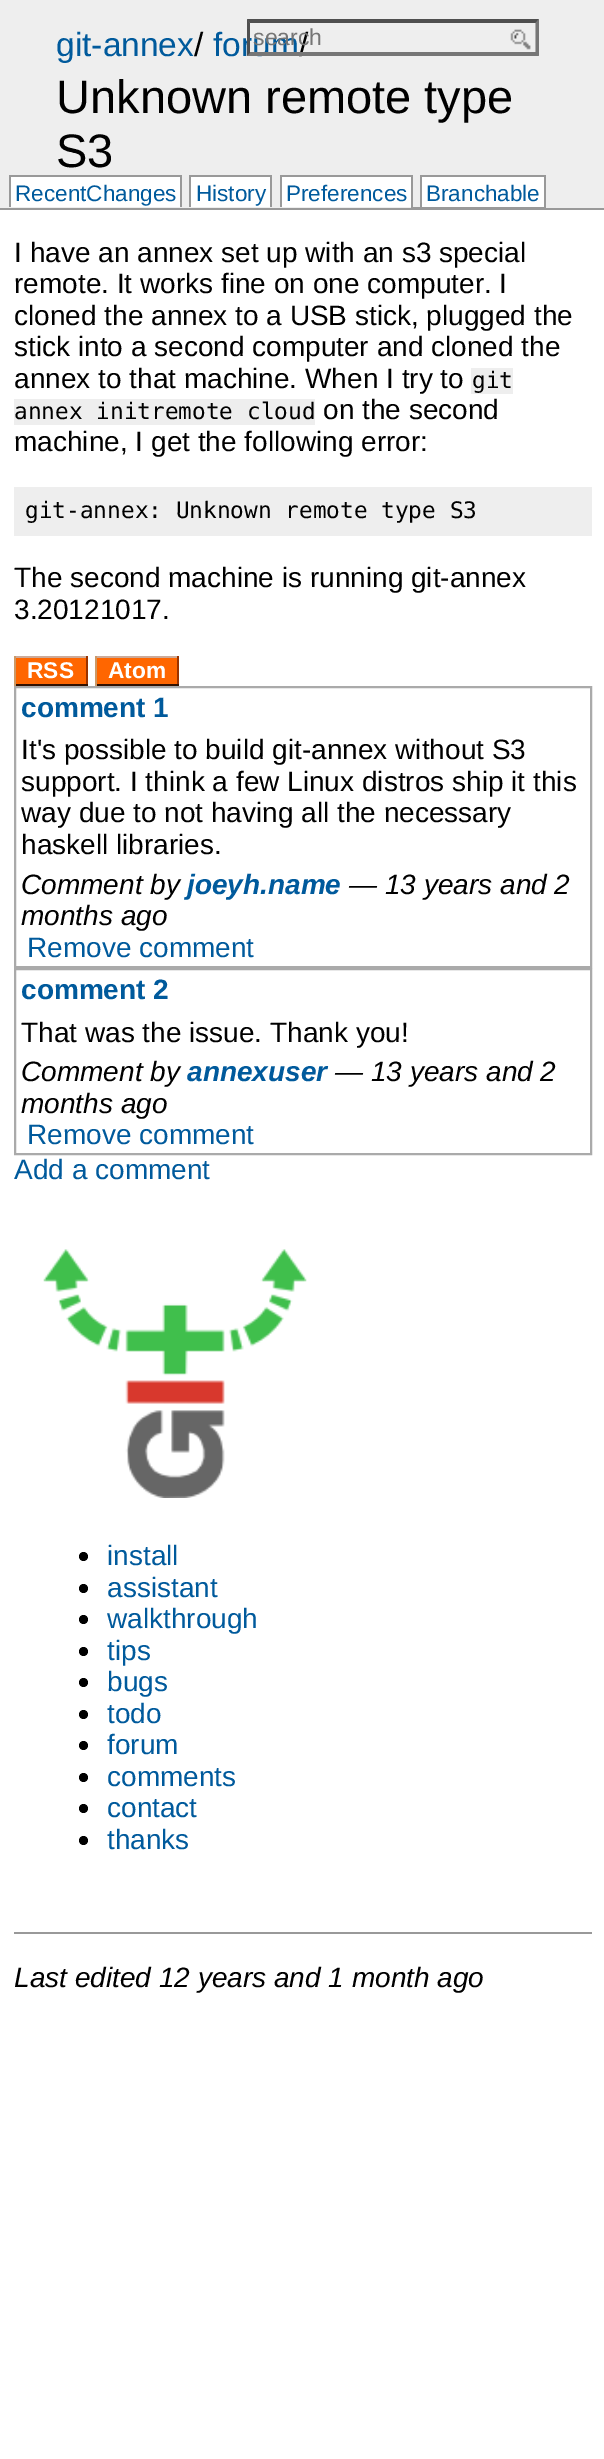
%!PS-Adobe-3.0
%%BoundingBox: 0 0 604 2459
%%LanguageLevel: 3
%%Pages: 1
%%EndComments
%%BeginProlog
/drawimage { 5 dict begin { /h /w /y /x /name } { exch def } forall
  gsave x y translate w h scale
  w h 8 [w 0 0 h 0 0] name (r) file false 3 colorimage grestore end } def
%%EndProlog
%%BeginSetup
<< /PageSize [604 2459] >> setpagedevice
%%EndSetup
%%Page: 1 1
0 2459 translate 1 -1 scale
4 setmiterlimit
1 setgray
0 0 604 2459 rectfill
0.933 setgray
0 0 604 208 rectfill
0.6 setgray
0 208 604 2 rectfill
(images/1.raw) 510 29 21 21 drawimage
0.31 setgray
newpath 247 19 moveto 539 19 lineto 536 23 lineto 250 23 lineto closepath fill
0.463 setgray
newpath 539 19 moveto 539 56 lineto 535.5 52.5 lineto 535.5 23 lineto closepath fill
1 setgray
11 177 169 30 rectfill
0.6 setgray
9 175 173 2 rectfill
180 175 2 32 rectfill
9 175 2 32 rectfill
1 setgray
191 177 79 30 rectfill
0.6 setgray
189 175 82 2 rectfill
270 175 2 32 rectfill
189 175 2 32 rectfill
1 setgray
282 177 129 30 rectfill
0.6 setgray
280 175 133 2 rectfill
411 175 2 32 rectfill
280 175 2 32 rectfill
1 setgray
422 177 122 30 rectfill
0.6 setgray
420 175 126 2 rectfill
544 175 2 32 rectfill
420 175 2 32 rectfill
411 207 135 1 rectfill
0.933 setgray
471 368 42 26 rectfill
14 399 301 26 rectfill
14 487 578 49 rectfill
1 0.4 0 setrgbcolor
16 658 70 26 rectfill
0.8 0.667 0.6 setrgbcolor
14 656 74 2 rectfill
0.6 0.2 0 setrgbcolor
86 656 2 30 rectfill
0.2 0.067 0 setrgbcolor
14 684 74 2 rectfill
0.8 0.6 0.4 setrgbcolor
14 656 2 30 rectfill
1 0.4 0 setrgbcolor
97 658 80 26 rectfill
0.8 0.667 0.6 setrgbcolor
95 656 84 2 rectfill
0.6 0.2 0 setrgbcolor
177 656 2 30 rectfill
0.2 0.067 0 setrgbcolor
95 684 84 2 rectfill
0.8 0.6 0.4 setrgbcolor
95 656 2 30 rectfill
0.667 setgray
2 setlinewidth
15 687 576 280 rectstroke
15 969 576 185 rectstroke
(images/2.raw) 43 1249 264 249 drawimage
0 setgray
newpath 83.5 1556.5 4.5 0 360 arc closepath fill
newpath 83.5 1588.5 4.5 0 360 arc closepath fill
newpath 83.5 1619.5 4.5 0 360 arc closepath fill
newpath 83.5 1651.5 4.5 0 360 arc closepath fill
newpath 83.5 1682.5 4.5 0 360 arc closepath fill
newpath 83.5 1714.5 4.5 0 360 arc closepath fill
newpath 83.5 1745.5 4.5 0 360 arc closepath fill
newpath 83.5 1777.5 4.5 0 360 arc closepath fill
newpath 83.5 1808.5 4.5 0 360 arc closepath fill
newpath 83.5 1840.5 4.5 0 360 arc closepath fill
0.6 setgray
14 1932 578 2 rectfill
/LiberationSans-Regular [33.5 0 0 -33.5 0 0] selectfont
0 0.353 0.612 setrgbcolor
56 56 moveto (git-annex) show
0 setgray
194 56 moveto (/) show
0 0.353 0.612 setrgbcolor
213 56 moveto (forum) show
0 setgray
299 56 moveto (/) show
/LiberationSans-Regular [23 0 0 -23 0 0] selectfont
0.459 setgray
253 45 moveto (search) show
0.463 setgray
newpath 539 56 moveto 247 56 lineto 250 52 lineto 536 52 lineto closepath fill
0.31 setgray
newpath 247 56 moveto 247 19 lineto 250 23 lineto 250 52.5 lineto closepath fill
/LiberationSans-Regular [47 0 0 -47 0 0] selectfont
0 setgray
56 113 moveto (Unknown remote type) show
56 167 moveto (S3) show
/LiberationSans-Regular [22.5 0 0 -22.5 0 0] selectfont
0 0.353 0.612 setrgbcolor
15 201 moveto (RecentChanges) show
196 201 moveto (History) show
286 201 moveto (Preferences) show
426 201 moveto (Branchable) show
/LiberationSans-Regular [28 0 0 -28 0 0] selectfont
0 setgray
14 262 moveto (I have an annex set up with an s3 special) show
14 293 moveto (remote. It works fine on one computer. I) show
14 325 moveto (cloned the annex to a USB stick, plugged the) show
14 356 moveto (stick into a second computer and cloned the) show
14 388 moveto (annex to that machine. When I try to) show
/DejaVuSansMono-Regular [22.75 0 0 -22.75 0 0] selectfont
472 388 moveto (git) show
14 419 moveto (annex initremote cloud) show
/LiberationSans-Regular [28 0 0 -28 0 0] selectfont
323 419 moveto (on the second) show
14 451 moveto (machine, I get the following error:) show
/DejaVuSansMono-Regular [22.75 0 0 -22.75 0 0] selectfont
25 518 moveto (git-annex: Unknown remote type S3) show
/LiberationSans-Regular [28 0 0 -28 0 0] selectfont
14 587 moveto (The second machine is running git-annex) show
14 619 moveto (3.20121017.) show
/LiberationSans-Bold [22.75 0 0 -22.75 0 0] selectfont
1 setgray
27 678 moveto (RSS) show
108 678 moveto (Atom) show
/LiberationSans-Bold [28 0 0 -28 0 0] selectfont
0 0.353 0.612 setrgbcolor
21 717 moveto (comment 1) show
/LiberationSans-Regular [28 0 0 -28 0 0] selectfont
0 setgray
21 759 moveto (It's possible to build git-annex without S3) show
21 791 moveto (support. I think a few Linux distros ship it this) show
21 822 moveto (way due to not having all the necessary) show
21 854 moveto (haskell libraries.) show
/LiberationSans-Italic [28 0 0 -28 0 0] selectfont
21 894 moveto (Comment by) show
/LiberationSans-BoldItalic [28 0 0 -28 0 0] selectfont
0 0.353 0.612 setrgbcolor
187 894 moveto (joeyh.name) show
/LiberationSans-Italic [28 0 0 -28 0 0] selectfont
0 setgray
349 894 moveto (— 13 years and 2) show
21 925 moveto (months ago) show
/LiberationSans-Regular [28 0 0 -28 0 0] selectfont
0 0.353 0.612 setrgbcolor
27 957 moveto (Remove comment) show
/LiberationSans-Bold [28 0 0 -28 0 0] selectfont
21 999 moveto (comment 2) show
/LiberationSans-Regular [28 0 0 -28 0 0] selectfont
0 setgray
21 1042 moveto (That was the issue. Thank you!) show
/LiberationSans-Italic [28 0 0 -28 0 0] selectfont
21 1081 moveto (Comment by) show
/LiberationSans-BoldItalic [28 0 0 -28 0 0] selectfont
0 0.353 0.612 setrgbcolor
187 1081 moveto (annexuser) show
/LiberationSans-Italic [28 0 0 -28 0 0] selectfont
0 setgray
335 1081 moveto (— 13 years and 2) show
21 1113 moveto (months ago) show
/LiberationSans-Regular [28 0 0 -28 0 0] selectfont
0 0.353 0.612 setrgbcolor
27 1144 moveto (Remove comment) show
14 1179 moveto (Add a comment) show
107 1565 moveto (install) show
107 1597 moveto (assistant) show
107 1628 moveto (walkthrough) show
107 1660 moveto (tips) show
107 1691 moveto (bugs) show
107 1723 moveto (todo) show
107 1754 moveto (forum) show
107 1786 moveto (comments) show
107 1817 moveto (contact) show
107 1849 moveto (thanks) show
/LiberationSans-Italic [28 0 0 -28 0 0] selectfont
0 setgray
14 1987 moveto (Last edited 12 years and 1 month ago) show
showpage
%%EOF
